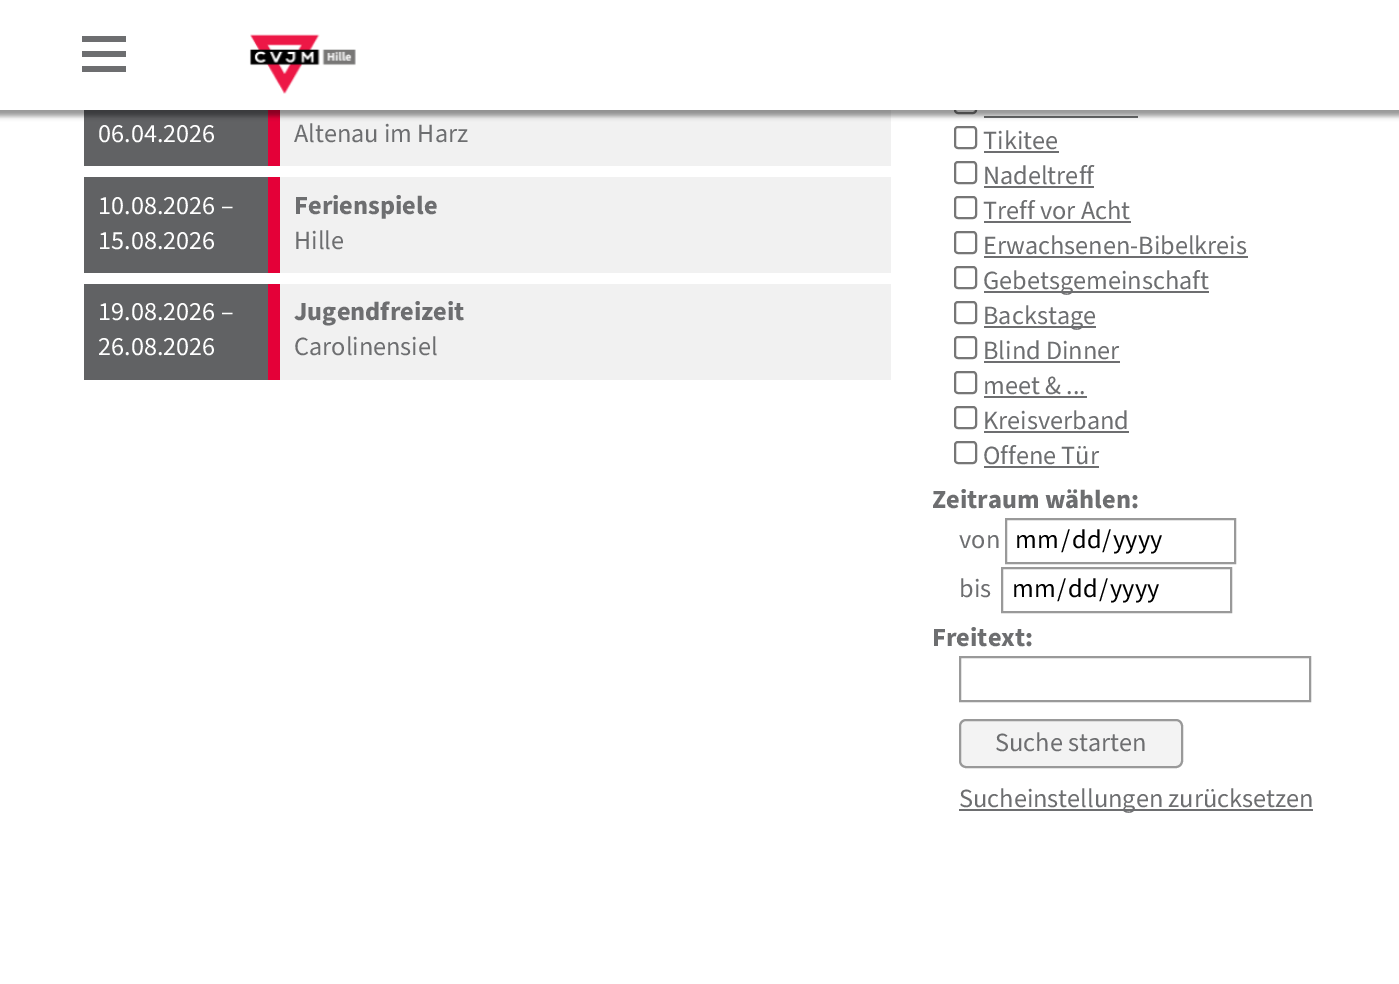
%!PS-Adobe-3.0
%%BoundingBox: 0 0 1399 984
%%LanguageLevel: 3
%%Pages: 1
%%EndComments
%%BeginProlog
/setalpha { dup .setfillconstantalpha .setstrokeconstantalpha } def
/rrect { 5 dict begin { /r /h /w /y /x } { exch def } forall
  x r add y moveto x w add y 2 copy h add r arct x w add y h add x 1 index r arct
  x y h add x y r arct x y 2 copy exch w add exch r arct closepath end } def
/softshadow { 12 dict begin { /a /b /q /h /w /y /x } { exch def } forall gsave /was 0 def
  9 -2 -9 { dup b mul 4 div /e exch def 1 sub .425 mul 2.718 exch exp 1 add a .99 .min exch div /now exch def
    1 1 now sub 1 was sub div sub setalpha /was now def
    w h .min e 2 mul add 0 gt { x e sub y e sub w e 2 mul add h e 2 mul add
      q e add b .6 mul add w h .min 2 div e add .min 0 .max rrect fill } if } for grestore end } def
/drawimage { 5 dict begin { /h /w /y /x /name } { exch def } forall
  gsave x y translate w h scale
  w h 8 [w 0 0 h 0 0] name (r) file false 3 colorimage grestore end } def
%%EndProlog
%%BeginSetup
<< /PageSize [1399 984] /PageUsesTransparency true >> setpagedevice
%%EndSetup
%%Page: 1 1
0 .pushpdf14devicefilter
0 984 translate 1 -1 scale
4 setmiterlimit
1 setgray
0 0 1399 984 rectfill
0.38 0.384 0.392 setrgbcolor
84 110 184 56 rectfill
0.945 setgray
280 110 611 56 rectfill
0.894 0 0.22 setrgbcolor
268 110 12 56 rectfill
0.463 setgray
2 setlinewidth
955 92 21 21 3 rrect stroke
0.427 0.431 0.439 setrgbcolor
984 116 154 2 rectfill
0 setgray
-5 -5 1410 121 0 2.5 0.4 softshadow
1 setgray
0 0 1399 110 rectfill
0.427 0.431 0.439 setrgbcolor
newpath 126 66 moveto 126 72 lineto 82 72 lineto 82 66 lineto closepath 82 51 moveto 126 51 lineto 126 57 lineto 82 57 lineto closepath 82 36 moveto 126 36 lineto 126 42 lineto 82 42 lineto closepath fill
(images/1.raw) 249 34 107 60 drawimage
0.38 0.384 0.392 setrgbcolor
84 177 184 96 rectfill
0.945 setgray
280 177 611 96 rectfill
0.894 0 0.22 setrgbcolor
268 177 12 96 rectfill
0.38 0.384 0.392 setrgbcolor
84 284 184 96 rectfill
0.945 setgray
280 284 611 96 rectfill
0.894 0 0.22 setrgbcolor
268 284 12 96 rectfill
0.463 setgray
955 127 21 21 3 rrect stroke
0.427 0.431 0.439 setrgbcolor
984 151 75 2 rectfill
0.463 setgray
955 162 21 21 3 rrect stroke
0.427 0.431 0.439 setrgbcolor
984 186 110 2 rectfill
0.463 setgray
955 197 21 21 3 rrect stroke
0.427 0.431 0.439 setrgbcolor
984 221 147 2 rectfill
0.463 setgray
955 232 21 21 3 rrect stroke
0.427 0.431 0.439 setrgbcolor
984 256 264 2 rectfill
0.463 setgray
955 267 21 21 3 rrect stroke
0.427 0.431 0.439 setrgbcolor
984 291 225 2 rectfill
0.463 setgray
955 302 21 21 3 rrect stroke
0.427 0.431 0.439 setrgbcolor
984 326 112 2 rectfill
0.463 setgray
955 337 21 21 3 rrect stroke
0.427 0.431 0.439 setrgbcolor
984 361 136 2 rectfill
0.463 setgray
955 372 21 21 3 rrect stroke
0.427 0.431 0.439 setrgbcolor
984 396 103 2 rectfill
0.463 setgray
955 407 21 21 3 rrect stroke
0.427 0.431 0.439 setrgbcolor
984 431 145 2 rectfill
0.463 setgray
955 442 21 21 3 rrect stroke
0.427 0.431 0.439 setrgbcolor
984 466 115 2 rectfill
0.6 setgray
1006 519 229 44 rectstroke
1002 568 229 44 rectstroke
960 657 350 44 rectstroke
0.953 setgray
960 720 222 47 6 rrect gsave fill grestore
0.6 setgray
stroke
0.427 0.431 0.439 setrgbcolor
959 809 354 2 rectfill
/SourceSansPro-Regular [26.25 0 0 -26.25 0 0] selectfont
1 setgray
98 142 moveto (06.04.2026) show
0.427 0.431 0.439 setrgbcolor
294 142 moveto (Altenau im Harz) show
1 setgray
98 214 moveto (10.08.2026 –) show
98 249 moveto (15.08.2026) show
/SourceSansPro-Bold [26.25 0 0 -26.25 0 0] selectfont
0.427 0.431 0.439 setrgbcolor
294 214 moveto (Ferienspiele) show
/SourceSansPro-Regular [26.25 0 0 -26.25 0 0] selectfont
294 249 moveto (Hille) show
1 setgray
98 320 moveto (19.08.2026 –) show
98 355 moveto (26.08.2026) show
/SourceSansPro-Bold [26.25 0 0 -26.25 0 0] selectfont
0.427 0.431 0.439 setrgbcolor
294 320 moveto (Jugendfreizeit) show
/SourceSansPro-Regular [26.25 0 0 -26.25 0 0] selectfont
294 355 moveto (Carolinensiel) show
983 149 moveto (Tikitee) show
983 184 moveto (Nadeltreff) show
983 219 moveto (Treff vor Acht) show
983 254 moveto (Erwachsenen-Bibelkreis) show
983 289 moveto (Gebetsgemeinschaft) show
983 324 moveto (Backstage) show
983 359 moveto (Blind Dinner) show
983 394 moveto (meet & ...) show
983 429 moveto (Kreisverband) show
983 464 moveto (Offene Tür) show
/SourceSansPro-Bold [26.25 0 0 -26.25 0 0] selectfont
932 508 moveto (Zeitraum wählen:) show
/SourceSansPro-Regular [26.25 0 0 -26.25 0 0] selectfont
959 548 moveto (von) show
0 setgray
1015 548 moveto (mm) show
1061 548 moveto (/) show
1072 548 moveto (dd) show
1102 548 moveto (/) show
1113 548 moveto (yyyy) show
0.427 0.431 0.439 setrgbcolor
959 597 moveto (bis) show
0 setgray
1012 597 moveto (mm) show
1057 597 moveto (/) show
1068 597 moveto (dd) show
1099 597 moveto (/) show
1110 597 moveto (yyyy) show
/SourceSansPro-Bold [26.25 0 0 -26.25 0 0] selectfont
0.427 0.431 0.439 setrgbcolor
932 646 moveto (Freitext:) show
/SourceSansPro-Regular [26.25 0 0 -26.25 0 0] selectfont
995 751 moveto (Suche starten) show
959 807 moveto (Sucheinstellungen zurücksetzen) show
.poppdf14devicefilter showpage
%%EOF
